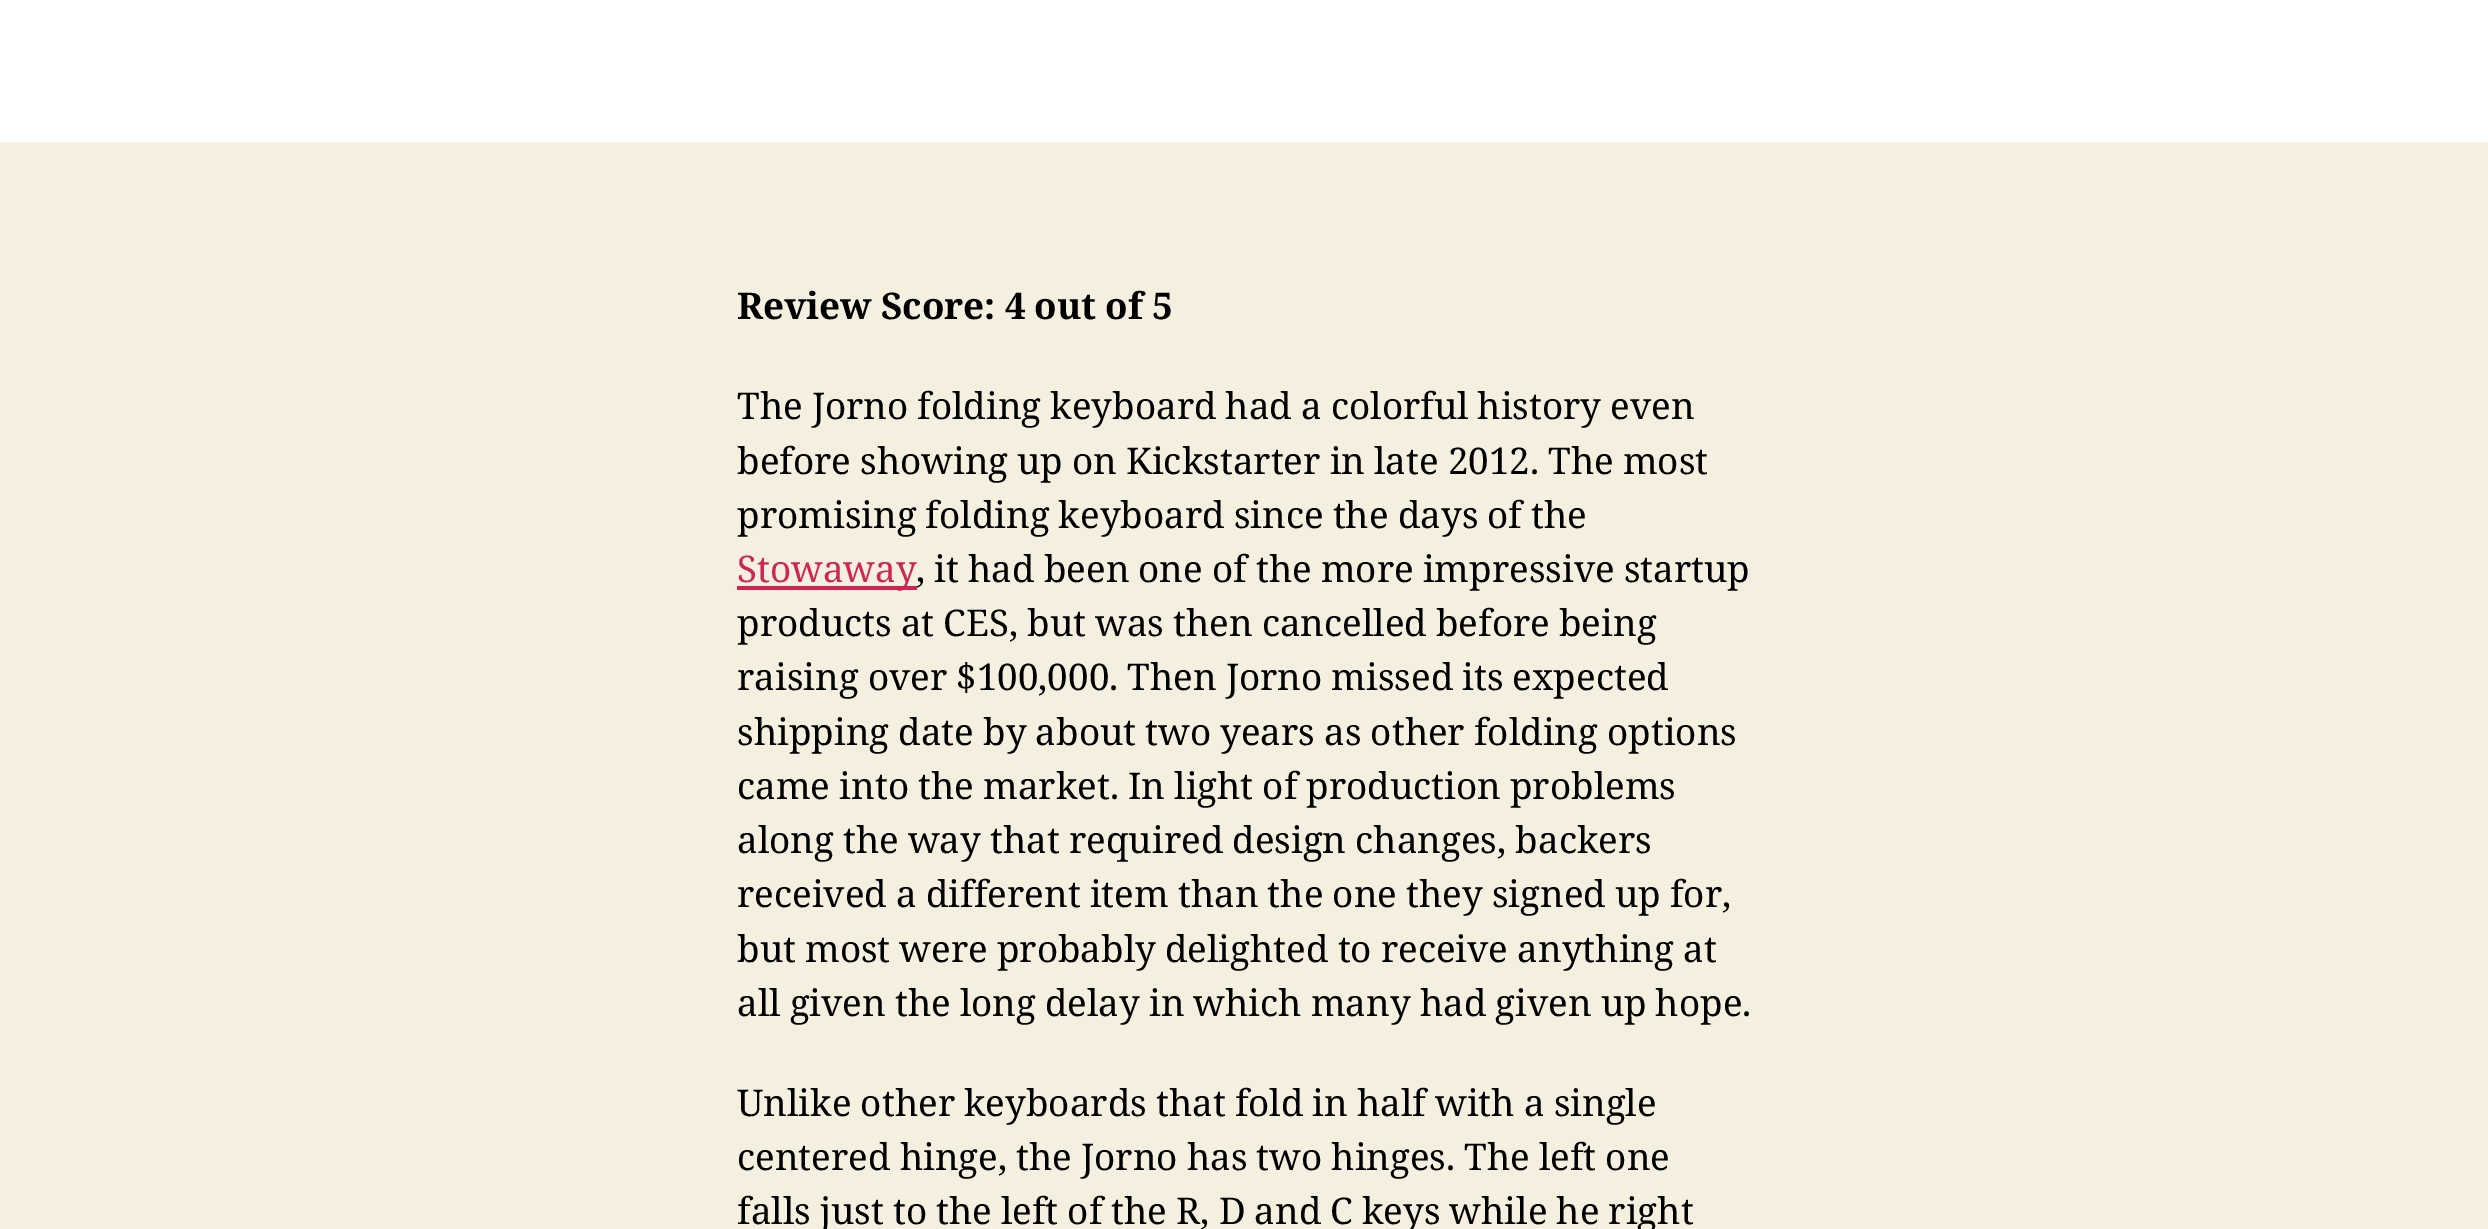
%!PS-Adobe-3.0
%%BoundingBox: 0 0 2488 1229
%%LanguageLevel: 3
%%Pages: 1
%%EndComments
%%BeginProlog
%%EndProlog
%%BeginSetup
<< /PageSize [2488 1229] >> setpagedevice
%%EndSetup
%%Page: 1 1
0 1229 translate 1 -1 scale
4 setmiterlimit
0.961 0.937 0.878 setrgbcolor
0 0 2488 1229 rectfill
1 setgray
0 0 2488 142 rectfill
0.804 0.149 0.325 setrgbcolor
737 586 180 4 rectfill
/NotoSerif-Bold [36.75 0 0 -36.75 0 0] selectfont
0 setgray
737 319 moveto -0.5 0 32 (Review Score: 4 out of 5) widthshow
/NotoSerif-Regular [36.75 0 0 -36.75 0 0] selectfont
737 419 moveto -0.5 0 32 (The Jorno folding keyboard had a colorful history even) widthshow
737 474 moveto -0.5 0 32 (before showing up on Kickstarter in late 2012. The most) widthshow
737 528 moveto -0.5 0 32 (promising folding keyboard since the days of the) widthshow
0.804 0.149 0.325 setrgbcolor
737 582 moveto (Stowaway) show
0 setgray
916 582 moveto -0.5 0 32 (, it had been one of the more impressive startup) widthshow
737 636 moveto -0.5 0 32 (products at CES, but was then cancelled before being) widthshow
737 690 moveto -0.5 0 32 (raising over $100,000. Then Jorno missed its expected) widthshow
737 745 moveto -0.5 0 32 (shipping date by about two years as other folding options) widthshow
737 799 moveto -0.5 0 32 (came into the market. In light of production problems) widthshow
737 853 moveto -0.5 0 32 (along the way that required design changes, backers) widthshow
737 907 moveto -0.5 0 32 (received a different item than the one they signed up for,) widthshow
737 962 moveto -0.5 0 32 (but most were probably delighted to receive anything at) widthshow
737 1016 moveto -0.5 0 32 (all given the long delay in which many had given up hope.) widthshow
737 1116 moveto -0.5 0 32 (Unlike other keyboards that fold in half with a single) widthshow
737 1170 moveto -0.5 0 32 (centered hinge, the Jorno has two hinges. The left one) widthshow
737 1224 moveto -0.5 0 32 (falls just to the left of the R, D and C keys while he right) widthshow
showpage
%%EOF
